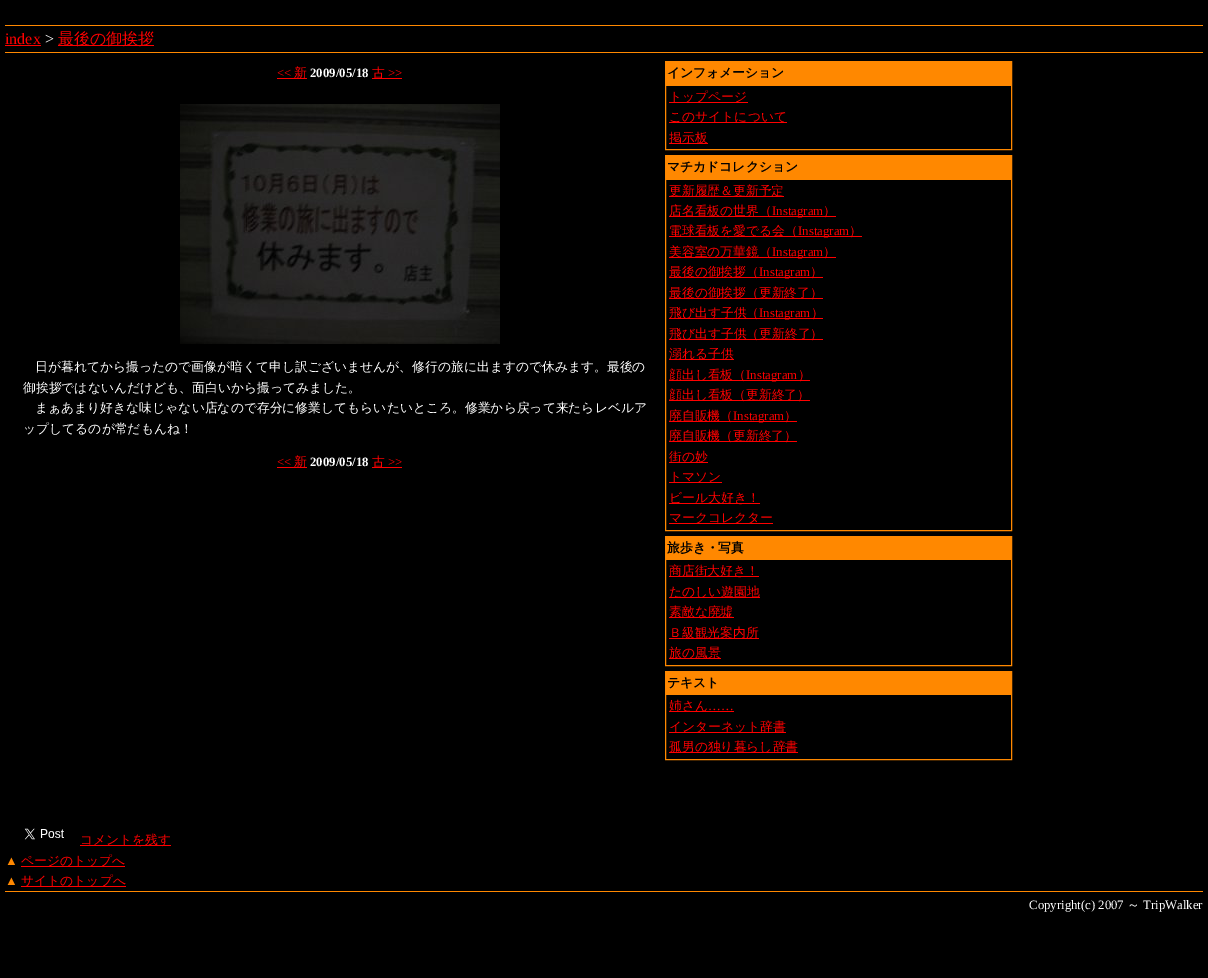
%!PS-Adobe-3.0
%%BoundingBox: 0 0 1208 978
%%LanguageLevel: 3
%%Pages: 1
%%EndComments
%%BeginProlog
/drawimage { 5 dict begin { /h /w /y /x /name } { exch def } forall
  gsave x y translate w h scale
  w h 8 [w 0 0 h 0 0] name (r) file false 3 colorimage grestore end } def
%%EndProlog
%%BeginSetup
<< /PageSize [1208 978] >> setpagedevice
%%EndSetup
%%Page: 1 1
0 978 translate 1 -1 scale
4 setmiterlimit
0 setgray
0 0 1208 978 rectfill
1 0.533 0 setrgbcolor
5 25 1198 1 rectfill
5 52 1198 1 rectfill
1 0 0 setrgbcolor
5 45 36 1 rectfill
58 45 96 1 rectfill
277 78 30 1 rectfill
372 78 30 1 rectfill
(images/1.raw) 180 104 320 240 drawimage
277 467 30 1 rectfill
372 467 30 1 rectfill
1 0.533 0 setrgbcolor
665.5 61.5 346 88 rectstroke
666 62 345 24 rectfill
1 0 0 setrgbcolor
669 102 79 1 rectfill
669 122 118 1 rectfill
669 143 39 1 rectfill
1 0.533 0 setrgbcolor
665.5 155.5 346 375 rectstroke
666 156 345 24 rectfill
1 0 0 setrgbcolor
669 196 115 1 rectfill
669 216 167 1 rectfill
669 236 193 1 rectfill
669 257 167 1 rectfill
669 277 154 1 rectfill
669 298 154 1 rectfill
669 318 154 1 rectfill
669 339 154 1 rectfill
669 359 65 1 rectfill
669 380 141 1 rectfill
669 400 141 1 rectfill
669 421 128 1 rectfill
669 441 128 1 rectfill
669 462 39 1 rectfill
669 482 53 1 rectfill
669 503 91 1 rectfill
669 523 104 1 rectfill
1 0.533 0 setrgbcolor
665.5 536.5 346 129 rectstroke
666 537 345 23 rectfill
1 0 0 setrgbcolor
669 576 90 1 rectfill
669 597 91 1 rectfill
669 617 65 1 rectfill
669 638 90 1 rectfill
669 658 52 1 rectfill
1 0.533 0 setrgbcolor
665.5 671.5 346 88 rectstroke
666 672 345 23 rectfill
1 0 0 setrgbcolor
669 711 65 1 rectfill
669 732 117 1 rectfill
669 752 129 1 rectfill
(images/2.raw) 24 828 40 12 drawimage
80 845 91 1 rectfill
21 866 104 1 rectfill
21 886 105 1 rectfill
1 0.533 0 setrgbcolor
5 891 1198 1 rectfill
/LiberationSerif-Regular [16 0 0 -16 0 0] selectfont
1 0 0 setrgbcolor
5 44 moveto (index) show
1 setgray
45 44 moveto (>) show
/WenQuanYiZenHei-Medium [16 0 0 -16 0 0] selectfont
1 0 0 setrgbcolor
58 44 moveto (最後の御挨拶) show
/LiberationSerif-Regular [12.8 0 0 -12.8 0 0] selectfont
277 77 moveto (<<) show
/WenQuanYiZenHei-Medium [12.8 0 0 -12.8 0 0] selectfont
294 77 moveto (新) show
/LiberationSerif-Bold [12.8 0 0 -12.8 0 0] selectfont
1 setgray
310 77 moveto (2009/05/18) show
/WenQuanYiZenHei-Medium [12.8 0 0 -12.8 0 0] selectfont
1 0 0 setrgbcolor
372 77 moveto (古) show
/LiberationSerif-Regular [12.8 0 0 -12.8 0 0] selectfont
388 77 moveto (>>) show
/WenQuanYiZenHei-Medium [12.8 0 0 -12.8 0 0] selectfont
1 setgray
35 371 moveto (日が暮れてから撮ったので画像が暗くて申し訳ございませんが、修行の旅に出ますので休みます。最後の) show
23 392 moveto (御挨拶ではないんだけども、面白いから撮ってみました。) show
35 412 moveto (まぁあまり好きな味じゃない店なので存分に修業してもらいたいところ。修業から戻って来たらレベルア) show
23 433 moveto (ップしてるのが常だもんね！) show
/LiberationSerif-Regular [12.8 0 0 -12.8 0 0] selectfont
1 0 0 setrgbcolor
277 466 moveto (<<) show
/WenQuanYiZenHei-Medium [12.8 0 0 -12.8 0 0] selectfont
294 466 moveto (新) show
/LiberationSerif-Bold [12.8 0 0 -12.8 0 0] selectfont
1 setgray
310 466 moveto (2009/05/18) show
/WenQuanYiZenHei-Medium [12.8 0 0 -12.8 0 0] selectfont
1 0 0 setrgbcolor
372 466 moveto (古) show
/LiberationSerif-Regular [12.8 0 0 -12.8 0 0] selectfont
388 466 moveto (>>) show
/WenQuanYiZenHei-Bold [12.8 0 0 -12.8 0 0] selectfont
0 setgray
667 77 moveto (インフォメーション) show
/WenQuanYiZenHei-Medium [12.8 0 0 -12.8 0 0] selectfont
1 0 0 setrgbcolor
669 101 moveto (トップページ) show
669 121 moveto (このサイトについて) show
669 142 moveto (掲示板) show
/WenQuanYiZenHei-Bold [12.8 0 0 -12.8 0 0] selectfont
0 setgray
667 171 moveto (マチカドコレクション) show
/WenQuanYiZenHei-Medium [12.8 0 0 -12.8 0 0] selectfont
1 0 0 setrgbcolor
669 195 moveto (更新履歴＆更新予定) show
669 215 moveto (店名看板の世界（) show
/LiberationSerif-Regular [12.8 0 0 -12.8 0 0] selectfont
772 215 moveto (Instagram) show
/WenQuanYiZenHei-Medium [12.8 0 0 -12.8 0 0] selectfont
823 215 moveto (）) show
669 235 moveto (電球看板を愛でる会（) show
/LiberationSerif-Regular [12.8 0 0 -12.8 0 0] selectfont
798 235 moveto (Instagram) show
/WenQuanYiZenHei-Medium [12.8 0 0 -12.8 0 0] selectfont
849 235 moveto (）) show
669 256 moveto (美容室の万華鏡（) show
/LiberationSerif-Regular [12.8 0 0 -12.8 0 0] selectfont
772 256 moveto (Instagram) show
/WenQuanYiZenHei-Medium [12.8 0 0 -12.8 0 0] selectfont
823 256 moveto (）) show
669 276 moveto (最後の御挨拶（) show
/LiberationSerif-Regular [12.8 0 0 -12.8 0 0] selectfont
759 276 moveto (Instagram) show
/WenQuanYiZenHei-Medium [12.8 0 0 -12.8 0 0] selectfont
810 276 moveto (）) show
669 297 moveto (最後の御挨拶（更新終了）) show
669 317 moveto (飛び出す子供（) show
/LiberationSerif-Regular [12.8 0 0 -12.8 0 0] selectfont
759 317 moveto (Instagram) show
/WenQuanYiZenHei-Medium [12.8 0 0 -12.8 0 0] selectfont
811 317 moveto (）) show
669 338 moveto (飛び出す子供（更新終了）) show
669 358 moveto (溺れる子供) show
669 379 moveto (顔出し看板（) show
/LiberationSerif-Regular [12.8 0 0 -12.8 0 0] selectfont
746 379 moveto (Instagram) show
/WenQuanYiZenHei-Medium [12.8 0 0 -12.8 0 0] selectfont
798 379 moveto (）) show
669 399 moveto (顔出し看板（更新終了）) show
669 420 moveto (廃自販機（) show
/LiberationSerif-Regular [12.8 0 0 -12.8 0 0] selectfont
733 420 moveto (Instagram) show
/WenQuanYiZenHei-Medium [12.8 0 0 -12.8 0 0] selectfont
784 420 moveto (）) show
669 440 moveto (廃自販機（更新終了）) show
669 461 moveto (街の妙) show
669 481 moveto (トマソン) show
669 502 moveto (ビール大好き！) show
669 522 moveto (マークコレクター) show
/WenQuanYiZenHei-Bold [12.8 0 0 -12.8 0 0] selectfont
0 setgray
667 552 moveto (旅歩き・写真) show
/WenQuanYiZenHei-Medium [12.8 0 0 -12.8 0 0] selectfont
1 0 0 setrgbcolor
669 575 moveto (商店街大好き！) show
669 596 moveto (たのしい遊園地) show
669 616 moveto (素敵な廃墟) show
669 637 moveto (Ｂ級観光案内所) show
669 657 moveto (旅の風景) show
/WenQuanYiZenHei-Bold [12.8 0 0 -12.8 0 0] selectfont
0 setgray
667 687 moveto (テキスト) show
/WenQuanYiZenHei-Medium [12.8 0 0 -12.8 0 0] selectfont
1 0 0 setrgbcolor
669 710 moveto (姉さん) show
/LiberationSerif-Regular [12.8 0 0 -12.8 0 0] selectfont
708 710 moveto (……) show
/WenQuanYiZenHei-Medium [12.8 0 0 -12.8 0 0] selectfont
669 731 moveto (インターネット辞書) show
669 751 moveto (孤男の独り暮らし辞書) show
80 844 moveto (コメントを残す) show
/LiberationSerif-Regular [12.8 0 0 -12.8 0 0] selectfont
1 0.533 0 setrgbcolor
5 865 moveto (▲) show
/WenQuanYiZenHei-Medium [12.8 0 0 -12.8 0 0] selectfont
1 0 0 setrgbcolor
21 865 moveto (ページのトップへ) show
/LiberationSerif-Regular [12.8 0 0 -12.8 0 0] selectfont
1 0.533 0 setrgbcolor
5 885 moveto (▲) show
/WenQuanYiZenHei-Medium [12.8 0 0 -12.8 0 0] selectfont
1 0 0 setrgbcolor
21 885 moveto (サイトのトップへ) show
/LiberationSerif-Regular [12.8 0 0 -12.8 0 0] selectfont
1 setgray
1029 909 moveto (Copyright\(c\) 2007) show
/WenQuanYiZenHei-Medium [12.8 0 0 -12.8 0 0] selectfont
1127 909 moveto (～) show
/LiberationSerif-Regular [12.8 0 0 -12.8 0 0] selectfont
1143 909 moveto (TripWalker) show
showpage
%%EOF
